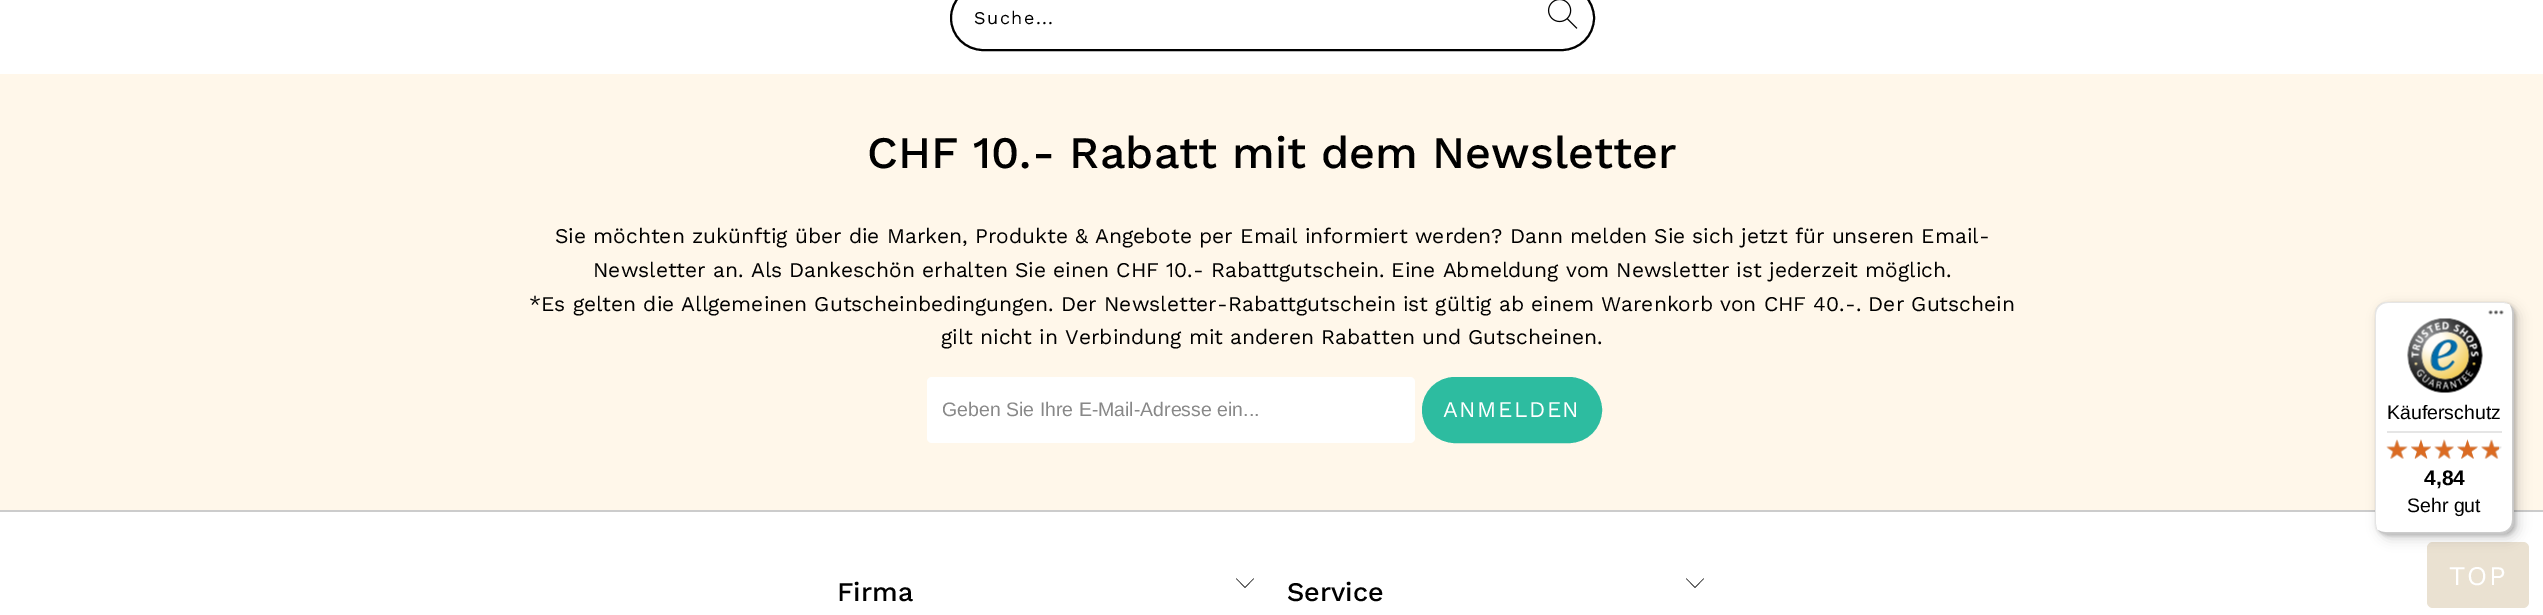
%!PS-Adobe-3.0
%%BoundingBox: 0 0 2543 615
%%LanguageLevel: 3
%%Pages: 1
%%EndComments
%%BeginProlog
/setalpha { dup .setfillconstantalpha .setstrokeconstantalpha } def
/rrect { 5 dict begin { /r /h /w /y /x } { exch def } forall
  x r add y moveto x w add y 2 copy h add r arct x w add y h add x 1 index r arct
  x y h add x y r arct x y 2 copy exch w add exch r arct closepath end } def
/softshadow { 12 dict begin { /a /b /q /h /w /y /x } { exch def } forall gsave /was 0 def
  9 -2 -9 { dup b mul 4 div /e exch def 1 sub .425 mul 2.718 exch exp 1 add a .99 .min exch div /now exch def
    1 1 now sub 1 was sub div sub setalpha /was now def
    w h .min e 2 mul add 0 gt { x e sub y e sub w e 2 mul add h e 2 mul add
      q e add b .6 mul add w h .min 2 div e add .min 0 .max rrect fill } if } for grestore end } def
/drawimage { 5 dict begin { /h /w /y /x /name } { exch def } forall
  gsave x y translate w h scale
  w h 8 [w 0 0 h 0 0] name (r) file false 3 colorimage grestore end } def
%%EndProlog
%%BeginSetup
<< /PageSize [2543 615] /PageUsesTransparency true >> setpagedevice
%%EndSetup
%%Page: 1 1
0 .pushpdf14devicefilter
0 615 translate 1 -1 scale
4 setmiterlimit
1 setgray
0 0 2543 615 rectfill
0 setgray
2 setlinewidth
951 -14 643 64 32 rrect stroke
(images/1.raw) 1547 0 31 29 drawimage
1 0.969 0.918 setrgbcolor
0 74 2543 436 rectfill
1 setgray
927 377 488 66 5 rrect fill
0.176 0.737 0.627 setrgbcolor
1423 378 178 64 32 rrect gsave fill grestore
stroke
0.8 setgray
0 510 2543 2 rectfill
0.918 0.882 0.82 setrgbcolor
2427 542 102 66 6 rrect fill
0 setgray
2379 306 140 233 12 6 0.15 softshadow
2376 303 140 233 12 1.5 0.15 softshadow
1 setgray
2375 302 139 232 12 rrect fill
0.1 setalpha
0 setgray
newpath 2388 303 moveto 2504 303 lineto 2509 304 lineto 2507 303 2504 302 2502 302 curveto 2387 302 lineto 2380 302 2375 307 2375 314 curveto 2375 522 lineto 2375 524 2376 527 2377 529 curveto 2376 524 lineto 2376 315 lineto 2376 308 2381 303 2388 303 curveto closepath fill
0.2 setalpha
newpath 2378 530 moveto 2380 532 2383 534 2387 534 curveto 2502 534 lineto 2509 534 2514 529 2514 522 curveto 2514 314 lineto 2514 310 2512 307 2510 305 curveto 2511 307 2512 309 2512 312 curveto 2512 520 lineto 2512 527 2507 532 2500 532 curveto 2385 532 lineto 2382 532 2380 531 2378 530 curveto closepath fill
0.196 setgray
newpath 2379 531 moveto 2381 533 2384 534 2387 534 curveto 2502 534 lineto 2509 534 2514 529 2514 522 curveto 2514 314 lineto 2514 311 2513 308 2511 306 curveto 2512 308 2513 310 2513 313 curveto 2513 521 lineto 2513 528 2508 533 2501 533 curveto 2386 533 lineto 2383 533 2381 532 2379 531 curveto closepath fill
0.3 setalpha
1 setgray
newpath 2379 531 moveto 2381 533 2384 534 2387 534 curveto 2502 534 lineto 2509 534 2514 529 2514 522 curveto 2514 314 lineto 2514 311 2513 308 2511 306 curveto 2512 308 2513 310 2513 313 curveto 2513 521 lineto 2513 528 2508 533 2501 533 curveto 2386 533 lineto 2383 533 2381 532 2379 531 curveto closepath fill
1 setalpha
(images/2.raw) 2488 310 16 5 drawimage
(images/3.raw) 2407 318 76 75 drawimage
0.898 setgray
2387 431 115 2 rectfill
(images/9.raw) 2387 440 20 19 drawimage
(images/4.raw) 2386 439 22 20 drawimage
(images/10.raw) 2411 439 20 20 drawimage
(images/5.raw) 2411 439 20 20 drawimage
(images/11.raw) 2434 439 20 20 drawimage
(images/6.raw) 2434 439 20 20 drawimage
(images/12.raw) 2457 439 21 20 drawimage
(images/7.raw) 2457 439 21 20 drawimage
(images/13.raw) 2481 440 21 19 drawimage
(images/8.raw) 2481 439 18 20 drawimage
0.016 setgray
newpath 1245 588 moveto 1236 578.5 lineto 1236.5 578.5 lineto 1245 587 lineto 1253.5 578.5 lineto 1254 578.5 lineto closepath fill
newpath 1695 588 moveto 1686 578.5 lineto 1686.5 578.5 lineto 1695 587 lineto 1703.5 578.5 lineto 1704 578.5 lineto closepath fill
/WorkSans-Regular [18 0 0 -18 0 0] selectfont
0 setgray
974 24 moveto 1.5 0 (Suche...) ashow
/WorkSans-Medium [45 0 0 -45 0 0] selectfont
867 168 moveto (CHF 10.- Rabatt mit dem Newsletter) show
/WorkSans-Regular [21 0 0 -21 0 0] selectfont
555 243 moveto (Sie möchten zukünftig über die Marken, Produkte & Angebote per Email informiert werden? Dann melden Sie sich jetzt für unseren Email-) show
593 277 moveto (Newsletter an. Als Dankeschön erhalten Sie einen CHF 10.- Rabattgutschein. Eine Abmeldung vom Newsletter ist jederzeit möglich.) show
529 311 moveto (*Es gelten die Allgemeinen Gutscheinbedingungen. Der Newsletter-Rabattgutschein ist gültig ab einem Warenkorb von CHF 40.-. Der Gutschein) show
941 344 moveto (gilt nicht in Verbindung mit anderen Rabatten und Gutscheinen.) show
/LiberationSans-Regular [19.5 0 0 -19.5 0 0] selectfont
0.533 setgray
942 416 moveto (Geben Sie Ihre E-Mail-Adresse ein...) show
/WorkSans-Regular [22.5 0 0 -22.5 0 0] selectfont
1 setgray
1443 417 moveto 1.5 0 (ANMELDEN) ashow
/LiberationSans-Regular [19.5 0 0 -19.5 0 0] selectfont
0 setgray
2387 419 moveto (Käuferschutz) show
/LiberationSans-Bold [21 0 0 -21 0 0] selectfont
2424 485 moveto (4,84) show
/LiberationSans-Regular [19.5 0 0 -19.5 0 0] selectfont
2407 512 moveto (Sehr gut) show
/WorkSans-Regular [27 0 0 -27 0 0] selectfont
1 setgray
2449 585 moveto 1.5 0 (TOP) ashow
/WorkSans-Medium [27 0 0 -27 0 0] selectfont
0 setgray
837 601 moveto (Firma) show
1287 601 moveto (Service) show
.poppdf14devicefilter showpage
%%EOF
